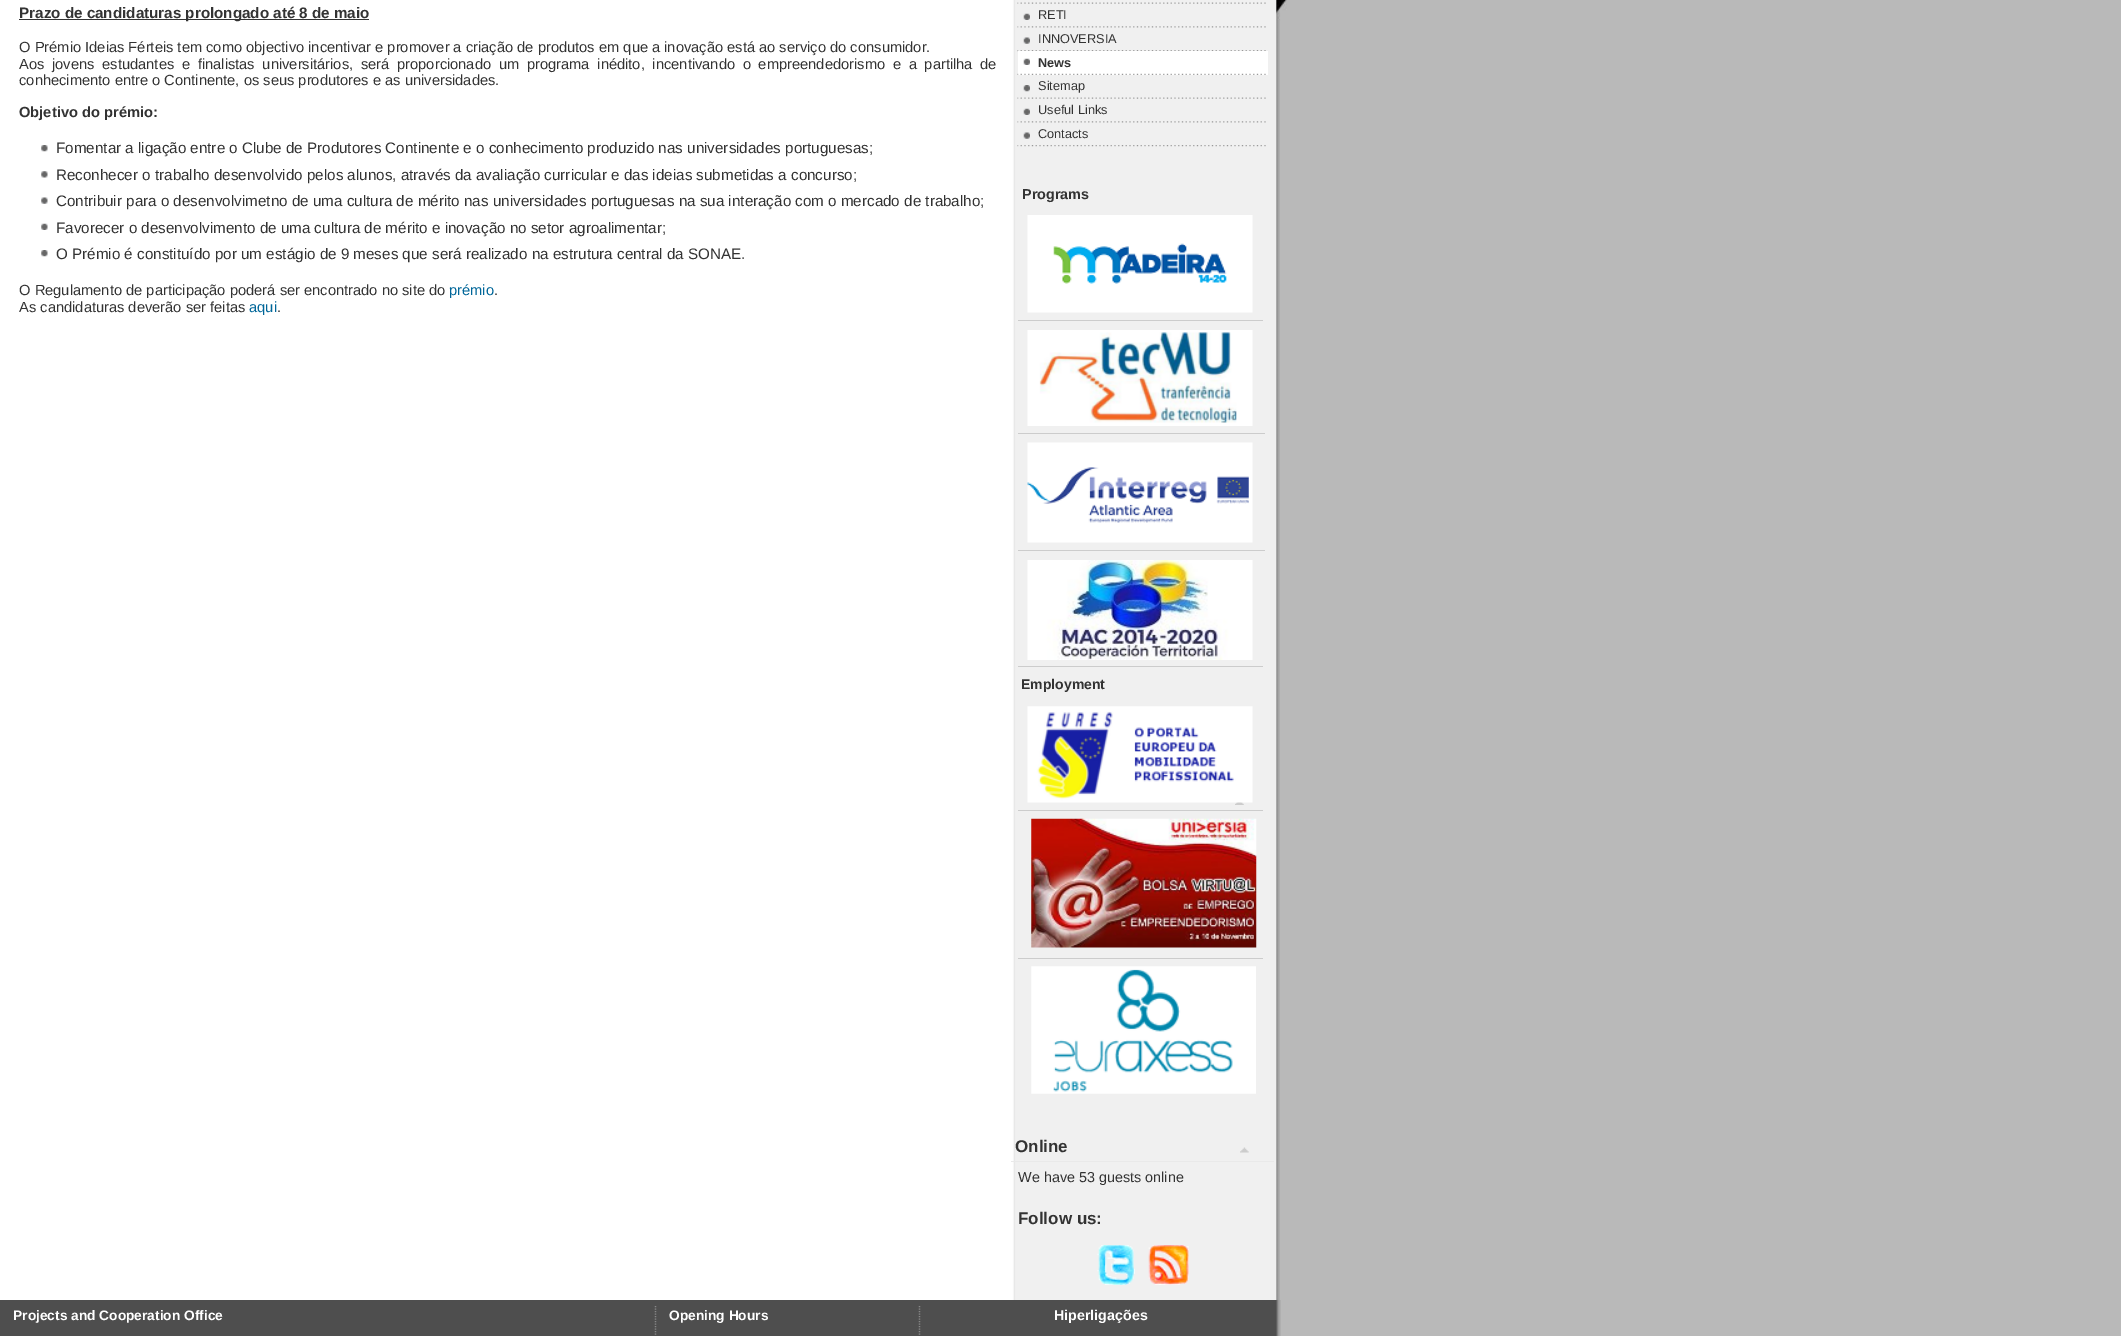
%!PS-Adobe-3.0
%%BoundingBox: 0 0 2121 1336
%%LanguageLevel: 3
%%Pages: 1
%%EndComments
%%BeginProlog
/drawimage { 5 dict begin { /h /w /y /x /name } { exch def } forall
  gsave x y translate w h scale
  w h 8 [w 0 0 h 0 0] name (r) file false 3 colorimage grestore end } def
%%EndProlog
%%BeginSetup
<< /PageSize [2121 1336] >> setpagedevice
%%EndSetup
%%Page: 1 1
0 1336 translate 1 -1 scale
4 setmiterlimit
0.725 setgray
0 0 2121 1336 rectfill
(images/1.raw) 1276 0 11 89 drawimage
(images/2.raw) 0 0 1280 1300 drawimage
0.2 setgray
19 19 350 1 rectfill
(images/3.raw) 41 145 7 7 drawimage
(images/4.raw) 41 171 7 7 drawimage
(images/5.raw) 41 197 7 7 drawimage
(images/6.raw) 41 223 7 7 drawimage
(images/3.raw) 41 250 7 7 drawimage
(images/7.raw) 1017 2 249 2 drawimage
(images/8.raw) 1017 26 249 2 drawimage
(images/9.raw) 1023 13 7 7 drawimage
(images/10.raw) 1017 50 249 2 drawimage
(images/11.raw) 1023 37 7 7 drawimage
1 setgray
1018 51 250 24 rectfill
(images/12.raw) 1017 73 249 2 drawimage
(images/13.raw) 1023 58 7 7 drawimage
(images/7.raw) 1017 97 249 2 drawimage
(images/14.raw) 1023 85 7 7 drawimage
(images/8.raw) 1017 121 249 2 drawimage
(images/9.raw) 1023 108 7 7 drawimage
(images/10.raw) 1017 145 249 2 drawimage
(images/11.raw) 1023 132 7 7 drawimage
(images/15.raw) 1027 215 226 98 drawimage
0.8 setgray
1018 320 245 1 rectfill
(images/16.raw) 1027 330 226 96 drawimage
1018 433 247 1 rectfill
(images/17.raw) 1027 442 226 101 drawimage
1018 550 247 1 rectfill
(images/18.raw) 1027 560 226 100 drawimage
1018 666 245 1 rectfill
(images/23.raw) 1235 802 9 3 drawimage
(images/19.raw) 1027 706 226 97 drawimage
1018 810 245 1 rectfill
(images/20.raw) 1031 818 226 130 drawimage
1018 958 245 1 rectfill
(images/21.raw) 1031 966 225 128 drawimage
(images/22.raw) 1240 1147 9 6 drawimage
0.914 setgray
1011 1161 263 1 rectfill
(images/24.raw) 1097 1245 38 40 drawimage
(images/25.raw) 1148 1245 41 40 drawimage
(images/26.raw) 0 1300 1281 36 drawimage
0.533 setgray
1.2 setlinewidth
[1.25 1.25] 0 setdash
newpath 655.5 1306 moveto 655.5 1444 lineto stroke
newpath 919.5 1306 moveto 919.5 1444 lineto stroke
/LiberationSans-Bold [15.2 0 0 -15.2 0 0] selectfont
0.2 setgray
19 18 moveto (Prazo de candidaturas prolongado até 8 de maio) show
/LiberationSans-Regular [14.7 0 0 -14.7 0 0] selectfont
19 52 moveto (O Prémio Ideias Férteis tem como objectivo incentivar e promover a criação de produtos em que a inovação está ao serviço do consumidor.) show
19 69 moveto 3.6 0 32 (Aos jovens estudantes e finalistas universitários, será proporcionado um programa inédito, incentivando o empreendedorismo e a partilha de) widthshow
19 85 moveto (conhecimento entre o Continente, os seus produtores e as universidades.) show
/LiberationSans-Bold [14.7 0 0 -14.7 0 0] selectfont
19 117 moveto (Objetivo do prémio:) show
/LiberationSans-Regular [15.2 0 0 -15.2 0 0] selectfont
56 153 moveto (Fomentar a ligação entre o Clube de Produtores Continente e o conhecimento produzido nas universidades portuguesas;) show
56 180 moveto (Reconhecer o trabalho desenvolvido pelos alunos, através da avaliação curricular e das ideias submetidas a concurso;) show
56 206 moveto (Contribuir para o desenvolvimetno de uma cultura de mérito nas universidades portuguesas na sua interação com o mercado de trabalho;) show
56 233 moveto (Favorecer o desenvolvimento de uma cultura de mérito e inovação no setor agroalimentar;) show
56 259 moveto (O Prémio é constituído por um estágio de 9 meses que será realizado na estrutura central da SONAE.) show
/LiberationSans-Regular [14.7 0 0 -14.7 0 0] selectfont
19 295 moveto (O Regulamento de participação poderá ser encontrado no site do) show
0 0.4 0.6 setrgbcolor
449 295 moveto (prémio) show
0.2 setgray
494 295 moveto (.) show
19 312 moveto (As candidaturas deverão ser feitas) show
0 0.4 0.6 setrgbcolor
249 312 moveto (aqui) show
0.2 setgray
277 312 moveto (.) show
/LiberationSans-Regular [12.75 0 0 -12.75 0 0] selectfont
1038 19 moveto (RETI) show
1038 43 moveto (INNOVERSIA) show
/LiberationSans-Bold [12.75 0 0 -12.75 0 0] selectfont
1038 67 moveto (News) show
/LiberationSans-Regular [12.75 0 0 -12.75 0 0] selectfont
1038 90 moveto (Sitemap) show
1038 114 moveto (Useful Links) show
1038 138 moveto (Contacts) show
/LiberationSans-Bold [14.4 0 0 -14.4 0 0] selectfont
1022 199 moveto (Programs) show
/LiberationSans-Bold [14 0 0 -14 0 0] selectfont
1021 689 moveto (Employment) show
/LiberationSans-Bold [17 0 0 -17 0 0] selectfont
1015 1152 moveto (Online) show
/LiberationSans-Regular [14.4 0 0 -14.4 0 0] selectfont
1018 1182 moveto (We have 53 guests online) show
/LiberationSans-Bold [17 0 0 -17 0 0] selectfont
1018 1224 moveto (Follow us:) show
/LiberationSans-Bold [13.75 0 0 -13.75 0 0] selectfont
1 setgray
13 1320 moveto (Projects and Cooperation Office) show
669 1320 moveto (Opening Hours) show
/LiberationSans-Bold [14.25 0 0 -14.25 0 0] selectfont
1054 1320 moveto (Hiperligações) show
showpage
%%EOF
